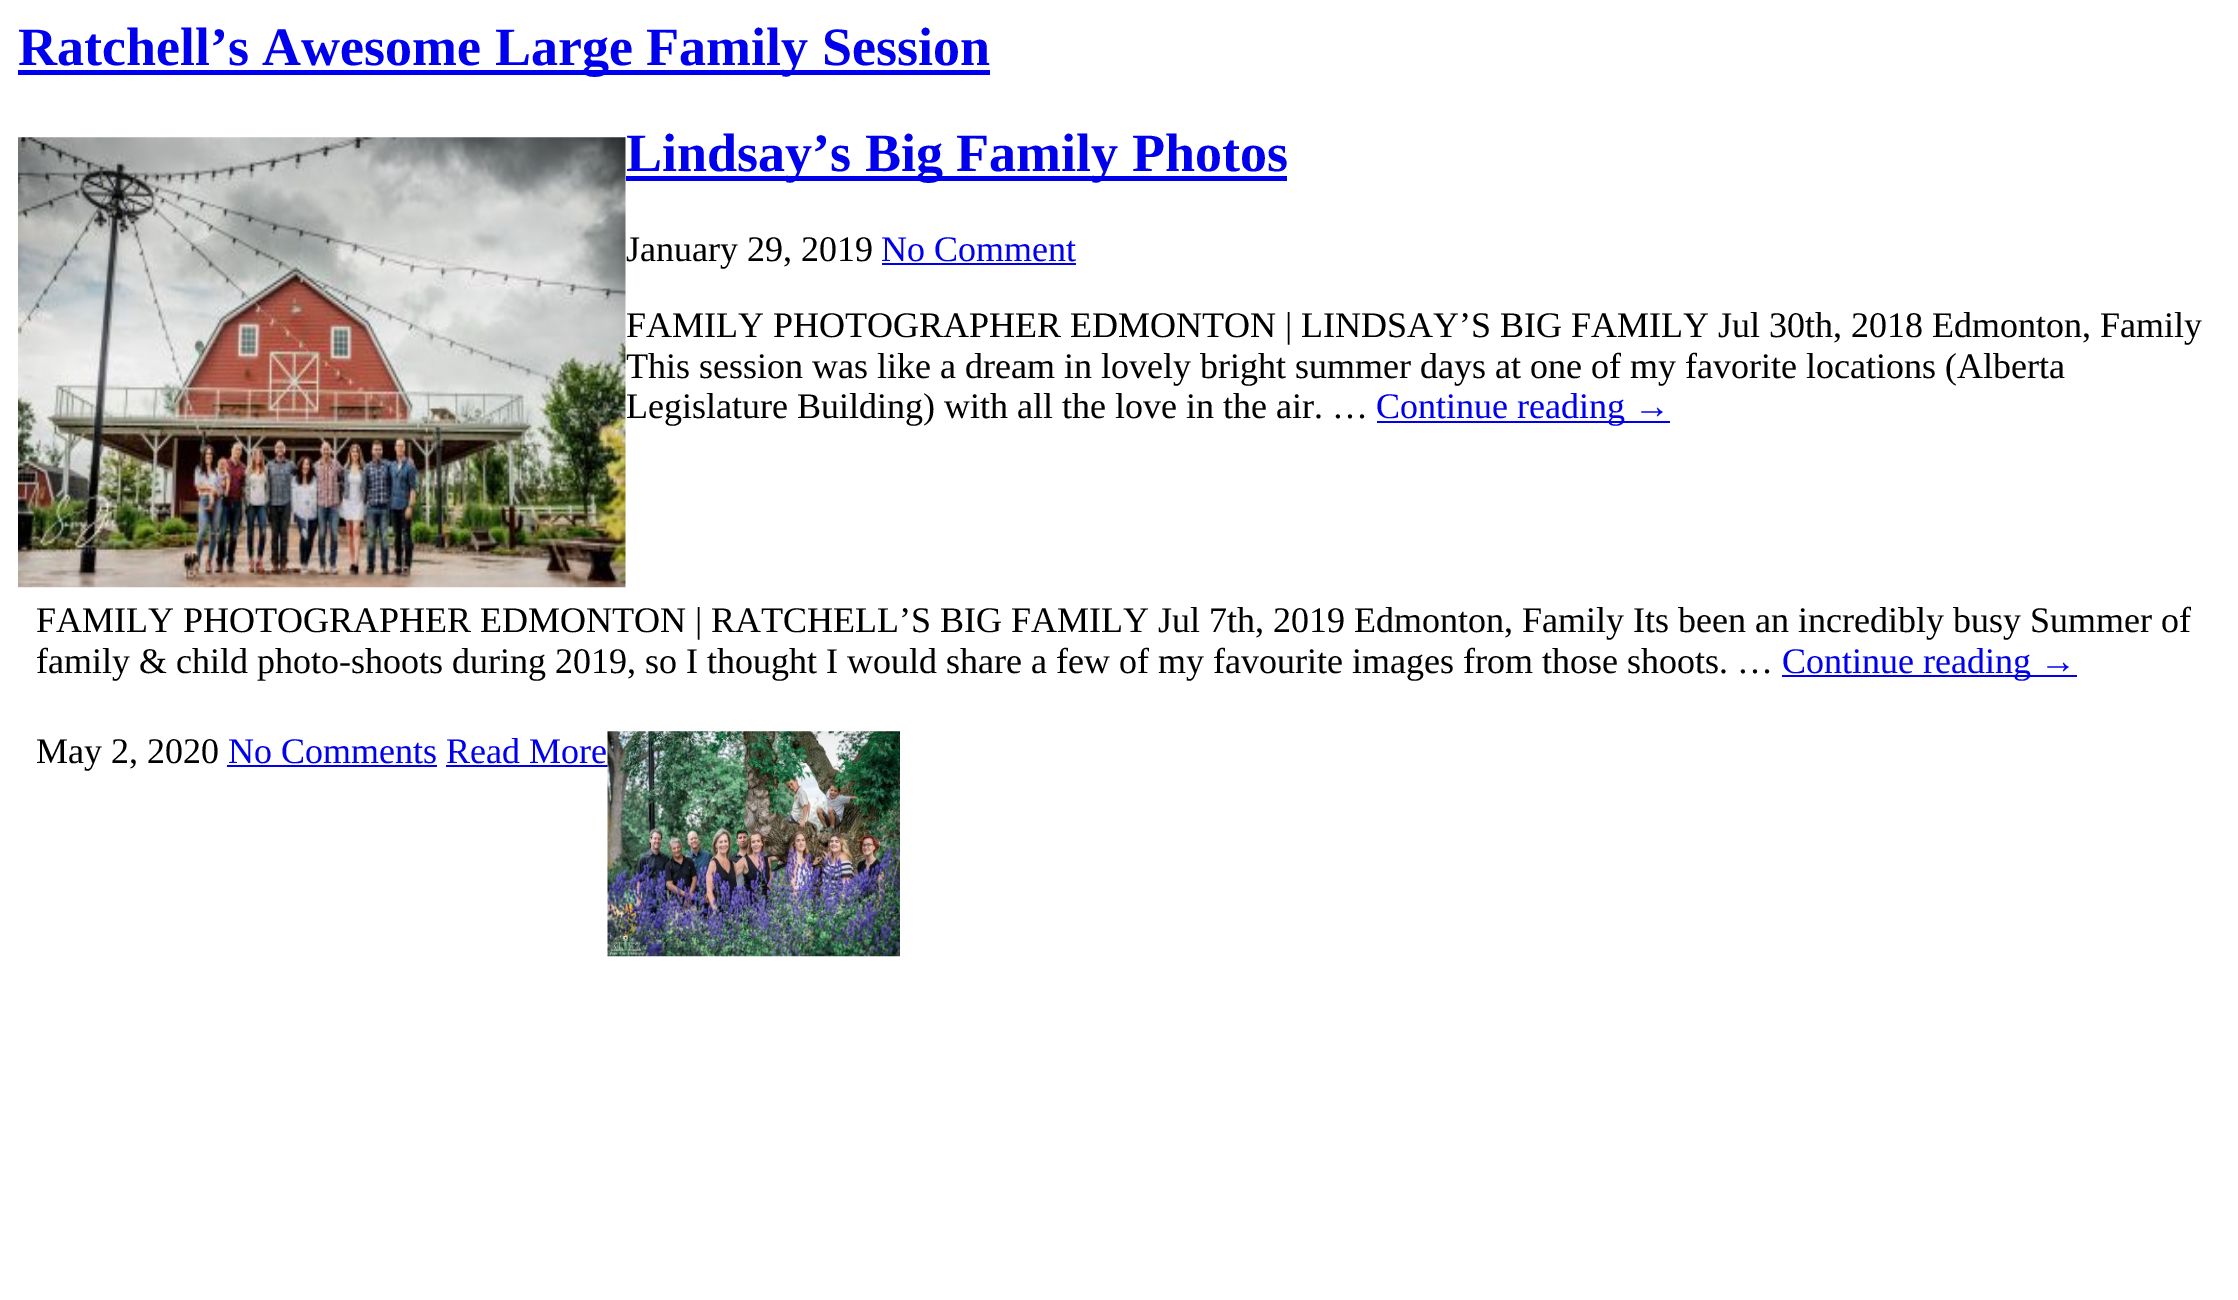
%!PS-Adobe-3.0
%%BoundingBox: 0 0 2238 1300
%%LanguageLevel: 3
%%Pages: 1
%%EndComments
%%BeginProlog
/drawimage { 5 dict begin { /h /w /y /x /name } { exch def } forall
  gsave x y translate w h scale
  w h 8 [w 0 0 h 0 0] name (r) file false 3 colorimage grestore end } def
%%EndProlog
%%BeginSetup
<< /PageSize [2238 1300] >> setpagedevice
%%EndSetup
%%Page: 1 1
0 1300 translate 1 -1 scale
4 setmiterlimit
1 setgray
0 0 2238 1300 rectfill
0 0 0.933 setrgbcolor
18 70 972 5 rectfill
(images/1.raw) 18 137 608 451 drawimage
1782 675 295 2 rectfill
227 765 210 2 rectfill
446 765 162 2 rectfill
626 176 661 5 rectfill
882 263 194 2 rectfill
1377 421 293 2 rectfill
(images/2.raw) 607 731 293 226 drawimage
/LiberationSerif-Bold [54 0 0 -54 0 0] selectfont
18 65 moveto (Ratchell’s Awesome Large Family Session) show
/LiberationSerif-Regular [36 0 0 -36 0 0] selectfont
0 setgray
36 632 moveto (FAMILY PHOTOGRAPHER EDMONTON | RATCHELL’S BIG FAMILY Jul 7th, 2019 Edmonton, Family Its been an incredibly busy Summer of) show
36 673 moveto (family & child photo-shoots during 2019, so I thought I would share a few of my favourite images from those shoots. …) show
0 0 0.933 setrgbcolor
1782 673 moveto (Continue reading →) show
0 setgray
36 763 moveto (May 2, 2020) show
0 0 0.933 setrgbcolor
228 763 moveto (No Comments Read More) show
/LiberationSerif-Bold [54 0 0 -54 0 0] selectfont
626 171 moveto (Lindsay’s Big Family Photos) show
/LiberationSerif-Regular [36 0 0 -36 0 0] selectfont
0 setgray
626 261 moveto (January 29, 2019) show
0 0 0.933 setrgbcolor
881 261 moveto (No Comment) show
0 setgray
626 337 moveto (FAMILY PHOTOGRAPHER EDMONTON | LINDSAY’S BIG FAMILY Jul 30th, 2018 Edmonton, Family) show
626 378 moveto (This session was like a dream in lovely bright summer days at one of my favorite locations \(Alberta) show
626 418 moveto (Legislature Building\) with all the love in the air. …) show
0 0 0.933 setrgbcolor
1376 418 moveto (Continue reading →) show
showpage
%%EOF
